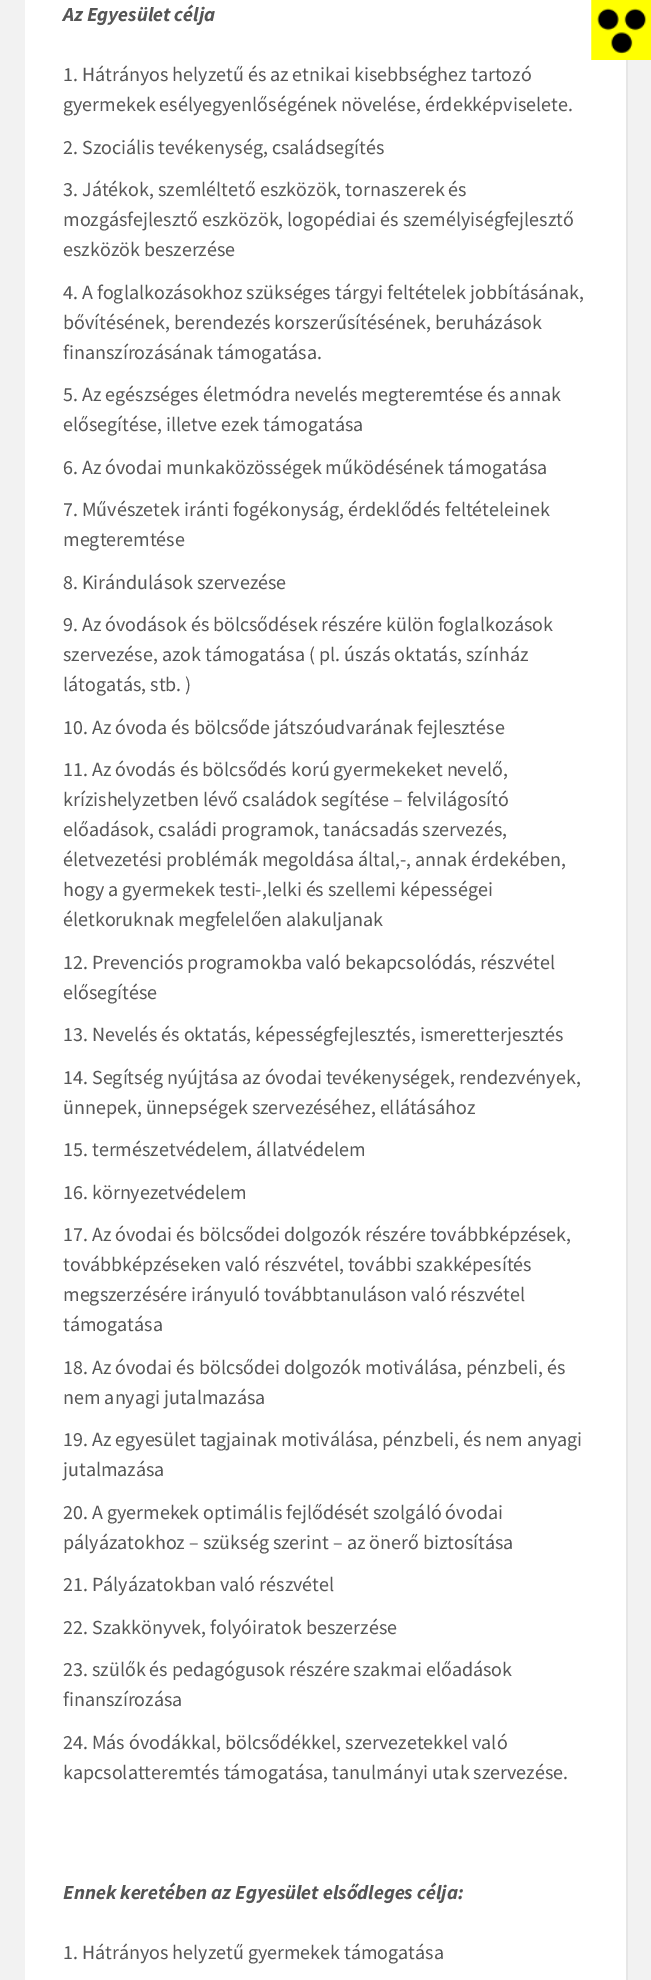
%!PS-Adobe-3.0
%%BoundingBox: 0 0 651 1980
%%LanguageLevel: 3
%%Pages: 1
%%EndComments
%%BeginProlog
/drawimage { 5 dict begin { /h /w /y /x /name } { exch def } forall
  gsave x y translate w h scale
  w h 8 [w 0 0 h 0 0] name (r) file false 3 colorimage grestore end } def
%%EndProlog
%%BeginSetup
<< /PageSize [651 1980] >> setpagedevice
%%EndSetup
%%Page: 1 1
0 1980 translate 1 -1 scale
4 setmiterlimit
0.949 setgray
0 0 651 1980 rectfill
0.902 setgray
newpath 26 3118 moveto 26 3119 lineto 628 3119 lineto 628 -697 lineto 626 -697 lineto 626 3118 lineto closepath fill
1 setgray
25 0 601 1980 rectfill
(images/1.raw) 591 0 60 60 drawimage
/SourceSansPro-BoldItalic [20 0 0 -20 0 0] selectfont
0.337 setgray
63 21 moveto (Az Egyesület célja) show
/SourceSansPro-Regular [20 0 0 -20 0 0] selectfont
63 81 moveto (1. Hátrányos helyzetű és az etnikai kisebbséghez tartozó) show
63 111 moveto (gyermekek esélyegyenlőségének növelése, érdekképviselete.) show
63 154 moveto (2. Szociális tevékenység, családsegítés) show
63 196 moveto (3. Játékok, szemléltető eszközök, tornaszerek és) show
63 226 moveto (mozgásfejlesztő eszközök, logopédiai és személyiségfejlesztő) show
63 256 moveto (eszközök beszerzése) show
63 299 moveto (4. A foglalkozásokhoz szükséges tárgyi feltételek jobbításának,) show
63 329 moveto (bővítésének, berendezés korszerűsítésének, beruházások) show
63 359 moveto (finanszírozásának támogatása.) show
63 401 moveto (5. Az egészséges életmódra nevelés megteremtése és annak) show
63 431 moveto (elősegítése, illetve ezek támogatása) show
63 474 moveto (6. Az óvodai munkaközösségek működésének támogatása) show
63 516 moveto (7. Művészetek iránti fogékonyság, érdeklődés feltételeinek) show
63 546 moveto (megteremtése) show
63 589 moveto (8. Kirándulások szervezése) show
63 631 moveto (9. Az óvodások és bölcsődések részére külön foglalkozások) show
63 661 moveto (szervezése, azok támogatása \( pl. úszás oktatás, színház) show
63 691 moveto (látogatás, stb. \)) show
63 734 moveto (10. Az óvoda és bölcsőde játszóudvarának fejlesztése) show
63 776 moveto (11. Az óvodás és bölcsődés korú gyermekeket nevelő,) show
63 806 moveto (krízishelyzetben lévő családok segítése – felvilágosító) show
63 836 moveto (előadások, családi programok, tanácsadás szervezés,) show
63 866 moveto (életvezetési problémák megoldása által,-, annak érdekében,) show
63 896 moveto (hogy a gyermekek testi-,lelki és szellemi képességei) show
63 926 moveto (életkoruknak megfelelően alakuljanak) show
63 969 moveto (12. Prevenciós programokba való bekapcsolódás, részvétel) show
63 999 moveto (elősegítése) show
63 1041 moveto (13. Nevelés és oktatás, képességfejlesztés, ismeretterjesztés) show
63 1084 moveto (14. Segítség nyújtása az óvodai tevékenységek, rendezvények,) show
63 1114 moveto (ünnepek, ünnepségek szervezéséhez, ellátásához) show
63 1156 moveto (15. természetvédelem, állatvédelem) show
63 1199 moveto (16. környezetvédelem) show
63 1241 moveto (17. Az óvodai és bölcsődei dolgozók részére továbbképzések,) show
63 1271 moveto (továbbképzéseken való részvétel, további szakképesítés) show
63 1301 moveto (megszerzésére irányuló továbbtanuláson való részvétel) show
63 1331 moveto (támogatása) show
63 1374 moveto (18. Az óvodai és bölcsődei dolgozók motiválása, pénzbeli, és) show
63 1404 moveto (nem anyagi jutalmazása) show
63 1446 moveto (19. Az egyesület tagjainak motiválása, pénzbeli, és nem anyagi) show
63 1476 moveto (jutalmazása) show
63 1519 moveto (20. A gyermekek optimális fejlődését szolgáló óvodai) show
63 1549 moveto (pályázatokhoz – szükség szerint – az önerő biztosítása) show
63 1591 moveto (21. Pályázatokban való részvétel) show
63 1634 moveto (22. Szakkönyvek, folyóiratok beszerzése) show
63 1676 moveto (23. szülők és pedagógusok részére szakmai előadások) show
63 1706 moveto (finanszírozása) show
63 1749 moveto (24. Más óvodákkal, bölcsődékkel, szervezetekkel való) show
63 1779 moveto (kapcsolatteremtés támogatása, tanulmányi utak szervezése.) show
/SourceSansPro-BoldItalic [20 0 0 -20 0 0] selectfont
63 1899 moveto (Ennek keretében az Egyesület elsődleges célja:) show
/SourceSansPro-Regular [20 0 0 -20 0 0] selectfont
63 1959 moveto (1. Hátrányos helyzetű gyermekek támogatása) show
showpage
%%EOF
